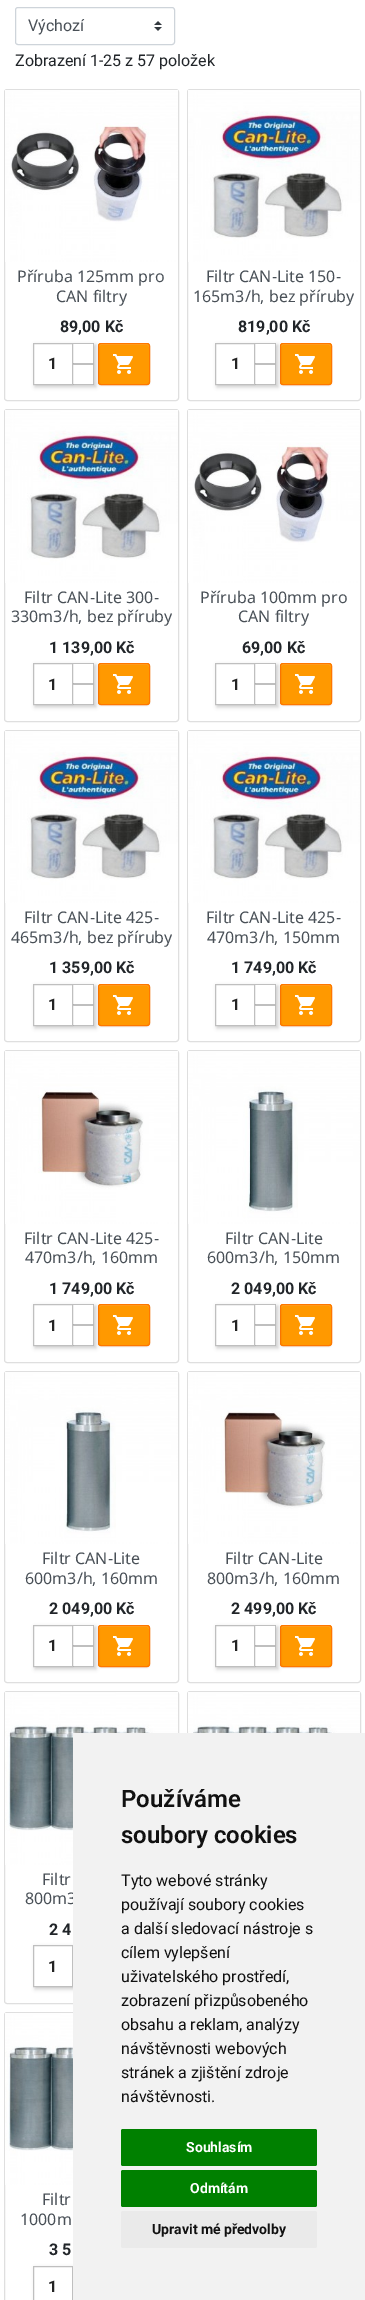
%!PS-Adobe-3.0
%%BoundingBox: 0 0 365 2300
%%LanguageLevel: 3
%%Pages: 1
%%EndComments
%%BeginProlog
/setalpha { dup .setfillconstantalpha .setstrokeconstantalpha } def
/rrect { 5 dict begin { /r /h /w /y /x } { exch def } forall
  x r add y moveto x w add y 2 copy h add r arct x w add y h add x 1 index r arct
  x y h add x y r arct x y 2 copy exch w add exch r arct closepath end } def
/softshadow { 12 dict begin { /a /b /q /h /w /y /x } { exch def } forall gsave /was 0 def
  9 -2 -9 { dup b mul 4 div /e exch def 1 sub .425 mul 2.718 exch exp 1 add a .99 .min exch div /now exch def
    1 1 now sub 1 was sub div sub setalpha /was now def
    w h .min e 2 mul add 0 gt { x e sub y e sub w e 2 mul add h e 2 mul add
      q e add b .6 mul add w h .min 2 div e add .min 0 .max rrect fill } if } for grestore end } def
/drawimage { 5 dict begin { /h /w /y /x /name } { exch def } forall
  gsave x y translate w h scale
  w h 8 [w 0 0 h 0 0] name (r) file false 3 colorimage grestore end } def
%%EndProlog
%%BeginSetup
<< /PageSize [365 2300] /PageUsesTransparency true >> setpagedevice
%%EndSetup
%%Page: 1 1
0 .pushpdf14devicefilter
0 2300 translate 1 -1 scale
4 setmiterlimit
1 setgray
0 0 365 2300 rectfill
(images/1.raw) 154 21 8 10 drawimage
0.808 0.831 0.855 setrgbcolor
15.5 7.5 159 37 2.5 rrect stroke
0.875 setgray
4.5 89.5 174 311 2.5 rrect stroke
(images/2.raw) 5 90 173 172 drawimage
0 setgray
98 344 52 42 3 0.5 0.07 softshadow
1 0.6 0 setrgbcolor
98 343 52 42 3 rrect fill
1 0.659 0.149 setrgbcolor
newpath 101 345 moveto 147 345 lineto 148 345 149 346 149 347 curveto 149 342 143 344 139 344 curveto 109 344 lineto 105 344 99 342 99 347 curveto 99 346 100 345 101 345 curveto closepath fill
1 0.467 0 setrgbcolor
98.5 343.5 51 41 2.5 rrect stroke
gsave
newpath 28 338 moveto 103 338 lineto 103 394 lineto 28 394 lineto closepath 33 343 moveto 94 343 lineto 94 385 lineto 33 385 lineto closepath eoclip newpath
0 setgray
35 345 61 42 0 2 0.2 softshadow
grestore
0.749 setgray
33.5 343.5 39 41 rectstroke
newpath 73 343 moveto 94 343 lineto 93 344 lineto 73 344 lineto closepath fill
0.25 setalpha
0 setgray
newpath 94 343 moveto 94 364 lineto 93 363 lineto 93 344 lineto closepath fill
newpath 94 364 moveto 73 364 lineto 73 363 lineto 93 363 lineto closepath fill
1 setalpha
0.749 setgray
newpath 73 364 moveto 94 364 lineto 93 365 lineto 73 365 lineto closepath fill
0.25 setalpha
0 setgray
newpath 94 364 moveto 94 385 lineto 93 384 lineto 93 365 lineto closepath fill
newpath 94 385 moveto 73 385 lineto 73 384 lineto 93 384 lineto closepath fill
1 setalpha
(images/3.raw) 113 354 20 20 drawimage
0.875 setgray
187.5 89.5 173 311 2.5 rrect stroke
(images/4.raw) 188 90 172 172 drawimage
0 setgray
280 344 52 42 3 0.5 0.07 softshadow
1 0.6 0 setrgbcolor
280 343 52 42 3 rrect fill
1 0.659 0.149 setrgbcolor
newpath 283 345 moveto 329 345 lineto 330 345 331 346 331 347 curveto 331 342 325 344 321 344 curveto 291 344 lineto 287 344 281 342 281 347 curveto 281 346 282 345 283 345 curveto closepath fill
1 0.467 0 setrgbcolor
280.5 343.5 51 41 2.5 rrect stroke
gsave
newpath 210 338 moveto 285 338 lineto 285 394 lineto 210 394 lineto closepath 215 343 moveto 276 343 lineto 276 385 lineto 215 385 lineto closepath eoclip newpath
0 setgray
217 345 61 42 0 2 0.2 softshadow
grestore
0.749 setgray
215.5 343.5 39 41 rectstroke
newpath 255 343 moveto 276 343 lineto 275 344 lineto 255 344 lineto closepath fill
0.25 setalpha
0 setgray
newpath 276 343 moveto 276 364 lineto 275 363 lineto 275 344 lineto closepath fill
newpath 276 364 moveto 255 364 lineto 255 363 lineto 275 363 lineto closepath fill
1 setalpha
0.749 setgray
newpath 255 364 moveto 276 364 lineto 275 365 lineto 255 365 lineto closepath fill
0.25 setalpha
0 setgray
newpath 276 364 moveto 276 385 lineto 275 384 lineto 275 365 lineto closepath fill
newpath 276 385 moveto 255 385 lineto 255 384 lineto 275 384 lineto closepath fill
1 setalpha
(images/3.raw) 295 354 20 20 drawimage
0.875 setgray
4.5 409.5 174 312 2.5 rrect stroke
(images/5.raw) 5 410 173 173 drawimage
0 setgray
98 664 52 42 3 0.5 0.07 softshadow
1 0.6 0 setrgbcolor
98 663 52 42 3 rrect fill
1 0.659 0.149 setrgbcolor
newpath 101 665 moveto 147 665 lineto 148 665 149 666 149 667 curveto 149 662 143 664 139 664 curveto 109 664 lineto 105 664 99 662 99 667 curveto 99 666 100 665 101 665 curveto closepath fill
1 0.467 0 setrgbcolor
98.5 663.5 51 41 2.5 rrect stroke
gsave
newpath 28 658 moveto 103 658 lineto 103 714 lineto 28 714 lineto closepath 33 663 moveto 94 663 lineto 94 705 lineto 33 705 lineto closepath eoclip newpath
0 setgray
35 665 61 42 0 2 0.2 softshadow
grestore
0.749 setgray
33.5 663.5 39 41 rectstroke
newpath 73 663 moveto 94 663 lineto 93 664 lineto 73 664 lineto closepath fill
0.25 setalpha
0 setgray
newpath 94 663 moveto 94 684 lineto 93 683 lineto 93 664 lineto closepath fill
newpath 94 684 moveto 73 684 lineto 73 683 lineto 93 683 lineto closepath fill
1 setalpha
0.749 setgray
newpath 73 684 moveto 94 684 lineto 93 685 lineto 73 685 lineto closepath fill
0.25 setalpha
0 setgray
newpath 94 684 moveto 94 705 lineto 93 704 lineto 93 685 lineto closepath fill
newpath 94 705 moveto 73 705 lineto 73 704 lineto 93 704 lineto closepath fill
1 setalpha
(images/3.raw) 113 674 20 20 drawimage
0.875 setgray
187.5 409.5 173 312 2.5 rrect stroke
(images/6.raw) 188 410 172 173 drawimage
0 setgray
280 664 52 42 3 0.5 0.07 softshadow
1 0.6 0 setrgbcolor
280 663 52 42 3 rrect fill
1 0.659 0.149 setrgbcolor
newpath 283 665 moveto 329 665 lineto 330 665 331 666 331 667 curveto 331 662 325 664 321 664 curveto 291 664 lineto 287 664 281 662 281 667 curveto 281 666 282 665 283 665 curveto closepath fill
1 0.467 0 setrgbcolor
280.5 663.5 51 41 2.5 rrect stroke
gsave
newpath 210 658 moveto 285 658 lineto 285 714 lineto 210 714 lineto closepath 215 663 moveto 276 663 lineto 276 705 lineto 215 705 lineto closepath eoclip newpath
0 setgray
217 665 61 42 0 2 0.2 softshadow
grestore
0.749 setgray
215.5 663.5 39 41 rectstroke
newpath 255 663 moveto 276 663 lineto 275 664 lineto 255 664 lineto closepath fill
0.25 setalpha
0 setgray
newpath 276 663 moveto 276 684 lineto 275 683 lineto 275 664 lineto closepath fill
newpath 276 684 moveto 255 684 lineto 255 683 lineto 275 683 lineto closepath fill
1 setalpha
0.749 setgray
newpath 255 684 moveto 276 684 lineto 275 685 lineto 255 685 lineto closepath fill
0.25 setalpha
0 setgray
newpath 276 684 moveto 276 705 lineto 275 704 lineto 275 685 lineto closepath fill
newpath 276 705 moveto 255 705 lineto 255 704 lineto 275 704 lineto closepath fill
1 setalpha
(images/3.raw) 295 674 20 20 drawimage
0.875 setgray
4.5 730.5 174 311 2.5 rrect stroke
(images/7.raw) 5 731 173 172 drawimage
0 setgray
98 985 52 42 3 0.5 0.07 softshadow
1 0.6 0 setrgbcolor
98 984 52 42 3 rrect fill
1 0.659 0.149 setrgbcolor
newpath 101 986 moveto 147 986 lineto 148 986 149 987 149 988 curveto 149 983 143 985 139 985 curveto 109 985 lineto 105 985 99 983 99 988 curveto 99 987 100 986 101 986 curveto closepath fill
1 0.467 0 setrgbcolor
98.5 984.5 51 41 2.5 rrect stroke
gsave
newpath 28 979 moveto 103 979 lineto 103 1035 lineto 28 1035 lineto closepath 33 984 moveto 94 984 lineto 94 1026 lineto 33 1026 lineto closepath eoclip newpath
0 setgray
35 986 61 42 0 2 0.2 softshadow
grestore
0.749 setgray
33.5 984.5 39 41 rectstroke
newpath 73 984 moveto 94 984 lineto 93 985 lineto 73 985 lineto closepath fill
0.25 setalpha
0 setgray
newpath 94 984 moveto 94 1005 lineto 93 1004 lineto 93 985 lineto closepath fill
newpath 94 1005 moveto 73 1005 lineto 73 1004 lineto 93 1004 lineto closepath fill
1 setalpha
0.749 setgray
newpath 73 1005 moveto 94 1005 lineto 93 1006 lineto 73 1006 lineto closepath fill
0.25 setalpha
0 setgray
newpath 94 1005 moveto 94 1026 lineto 93 1025 lineto 93 1006 lineto closepath fill
newpath 94 1026 moveto 73 1026 lineto 73 1025 lineto 93 1025 lineto closepath fill
1 setalpha
(images/3.raw) 113 995 20 20 drawimage
0.875 setgray
187.5 730.5 173 311 2.5 rrect stroke
(images/4.raw) 188 731 172 172 drawimage
0 setgray
280 985 52 42 3 0.5 0.07 softshadow
1 0.6 0 setrgbcolor
280 984 52 42 3 rrect fill
1 0.659 0.149 setrgbcolor
newpath 283 986 moveto 329 986 lineto 330 986 331 987 331 988 curveto 331 983 325 985 321 985 curveto 291 985 lineto 287 985 281 983 281 988 curveto 281 987 282 986 283 986 curveto closepath fill
1 0.467 0 setrgbcolor
280.5 984.5 51 41 2.5 rrect stroke
gsave
newpath 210 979 moveto 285 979 lineto 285 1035 lineto 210 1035 lineto closepath 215 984 moveto 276 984 lineto 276 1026 lineto 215 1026 lineto closepath eoclip newpath
0 setgray
217 986 61 42 0 2 0.2 softshadow
grestore
0.749 setgray
215.5 984.5 39 41 rectstroke
newpath 255 984 moveto 276 984 lineto 275 985 lineto 255 985 lineto closepath fill
0.25 setalpha
0 setgray
newpath 276 984 moveto 276 1005 lineto 275 1004 lineto 275 985 lineto closepath fill
newpath 276 1005 moveto 255 1005 lineto 255 1004 lineto 275 1004 lineto closepath fill
1 setalpha
0.749 setgray
newpath 255 1005 moveto 276 1005 lineto 275 1006 lineto 255 1006 lineto closepath fill
0.25 setalpha
0 setgray
newpath 276 1005 moveto 276 1026 lineto 275 1025 lineto 275 1006 lineto closepath fill
newpath 276 1026 moveto 255 1026 lineto 255 1025 lineto 275 1025 lineto closepath fill
1 setalpha
(images/3.raw) 295 995 20 20 drawimage
0.875 setgray
4.5 1050.5 174 312 2.5 rrect stroke
(images/8.raw) 5 1051 173 173 drawimage
0 setgray
98 1305 52 42 3 0.5 0.07 softshadow
1 0.6 0 setrgbcolor
98 1304 52 42 3 rrect fill
1 0.659 0.149 setrgbcolor
newpath 101 1306 moveto 147 1306 lineto 148 1306 149 1307 149 1308 curveto 149 1303 143 1305 139 1305 curveto 109 1305 lineto 105 1305 99 1303 99 1308 curveto 99 1307 100 1306 101 1306 curveto closepath fill
1 0.467 0 setrgbcolor
98.5 1304.5 51 41 2.5 rrect stroke
gsave
newpath 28 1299 moveto 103 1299 lineto 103 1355 lineto 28 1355 lineto closepath 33 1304 moveto 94 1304 lineto 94 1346 lineto 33 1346 lineto closepath eoclip newpath
0 setgray
35 1306 61 42 0 2 0.2 softshadow
grestore
0.749 setgray
33.5 1304.5 39 41 rectstroke
newpath 73 1304 moveto 94 1304 lineto 93 1305 lineto 73 1305 lineto closepath fill
0.25 setalpha
0 setgray
newpath 94 1304 moveto 94 1325 lineto 93 1324 lineto 93 1305 lineto closepath fill
newpath 94 1325 moveto 73 1325 lineto 73 1324 lineto 93 1324 lineto closepath fill
1 setalpha
0.749 setgray
newpath 73 1325 moveto 94 1325 lineto 93 1326 lineto 73 1326 lineto closepath fill
0.25 setalpha
0 setgray
newpath 94 1325 moveto 94 1346 lineto 93 1345 lineto 93 1326 lineto closepath fill
newpath 94 1346 moveto 73 1346 lineto 73 1345 lineto 93 1345 lineto closepath fill
1 setalpha
(images/3.raw) 113 1315 20 20 drawimage
0.875 setgray
187.5 1050.5 173 312 2.5 rrect stroke
(images/9.raw) 188 1051 172 173 drawimage
0 setgray
280 1305 52 42 3 0.5 0.07 softshadow
1 0.6 0 setrgbcolor
280 1304 52 42 3 rrect fill
1 0.659 0.149 setrgbcolor
newpath 283 1306 moveto 329 1306 lineto 330 1306 331 1307 331 1308 curveto 331 1303 325 1305 321 1305 curveto 291 1305 lineto 287 1305 281 1303 281 1308 curveto 281 1307 282 1306 283 1306 curveto closepath fill
1 0.467 0 setrgbcolor
280.5 1304.5 51 41 2.5 rrect stroke
gsave
newpath 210 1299 moveto 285 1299 lineto 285 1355 lineto 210 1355 lineto closepath 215 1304 moveto 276 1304 lineto 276 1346 lineto 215 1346 lineto closepath eoclip newpath
0 setgray
217 1306 61 42 0 2 0.2 softshadow
grestore
0.749 setgray
215.5 1304.5 39 41 rectstroke
newpath 255 1304 moveto 276 1304 lineto 275 1305 lineto 255 1305 lineto closepath fill
0.25 setalpha
0 setgray
newpath 276 1304 moveto 276 1325 lineto 275 1324 lineto 275 1305 lineto closepath fill
newpath 276 1325 moveto 255 1325 lineto 255 1324 lineto 275 1324 lineto closepath fill
1 setalpha
0.749 setgray
newpath 255 1325 moveto 276 1325 lineto 275 1326 lineto 255 1326 lineto closepath fill
0.25 setalpha
0 setgray
newpath 276 1325 moveto 276 1346 lineto 275 1345 lineto 275 1326 lineto closepath fill
newpath 276 1346 moveto 255 1346 lineto 255 1345 lineto 275 1345 lineto closepath fill
1 setalpha
(images/3.raw) 295 1315 20 20 drawimage
0.875 setgray
4.5 1371.5 174 311 2.5 rrect stroke
(images/10.raw) 5 1372 173 172 drawimage
0 setgray
98 1626 52 42 3 0.5 0.07 softshadow
1 0.6 0 setrgbcolor
98 1625 52 42 3 rrect fill
1 0.659 0.149 setrgbcolor
newpath 101 1627 moveto 147 1627 lineto 148 1627 149 1628 149 1629 curveto 149 1624 143 1626 139 1626 curveto 109 1626 lineto 105 1626 99 1624 99 1629 curveto 99 1628 100 1627 101 1627 curveto closepath fill
1 0.467 0 setrgbcolor
98.5 1625.5 51 41 2.5 rrect stroke
gsave
newpath 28 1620 moveto 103 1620 lineto 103 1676 lineto 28 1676 lineto closepath 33 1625 moveto 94 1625 lineto 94 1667 lineto 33 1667 lineto closepath eoclip newpath
0 setgray
35 1627 61 42 0 2 0.2 softshadow
grestore
0.749 setgray
33.5 1625.5 39 41 rectstroke
newpath 73 1625 moveto 94 1625 lineto 93 1626 lineto 73 1626 lineto closepath fill
0.25 setalpha
0 setgray
newpath 94 1625 moveto 94 1646 lineto 93 1645 lineto 93 1626 lineto closepath fill
newpath 94 1646 moveto 73 1646 lineto 73 1645 lineto 93 1645 lineto closepath fill
1 setalpha
0.749 setgray
newpath 73 1646 moveto 94 1646 lineto 93 1647 lineto 73 1647 lineto closepath fill
0.25 setalpha
0 setgray
newpath 94 1646 moveto 94 1667 lineto 93 1666 lineto 93 1647 lineto closepath fill
newpath 94 1667 moveto 73 1667 lineto 73 1666 lineto 93 1666 lineto closepath fill
1 setalpha
(images/3.raw) 113 1636 20 20 drawimage
0.875 setgray
187.5 1371.5 173 311 2.5 rrect stroke
(images/11.raw) 188 1372 172 172 drawimage
0 setgray
280 1626 52 42 3 0.5 0.07 softshadow
1 0.6 0 setrgbcolor
280 1625 52 42 3 rrect fill
1 0.659 0.149 setrgbcolor
newpath 283 1627 moveto 329 1627 lineto 330 1627 331 1628 331 1629 curveto 331 1624 325 1626 321 1626 curveto 291 1626 lineto 287 1626 281 1624 281 1629 curveto 281 1628 282 1627 283 1627 curveto closepath fill
1 0.467 0 setrgbcolor
280.5 1625.5 51 41 2.5 rrect stroke
gsave
newpath 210 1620 moveto 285 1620 lineto 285 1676 lineto 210 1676 lineto closepath 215 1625 moveto 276 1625 lineto 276 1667 lineto 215 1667 lineto closepath eoclip newpath
0 setgray
217 1627 61 42 0 2 0.2 softshadow
grestore
0.749 setgray
215.5 1625.5 39 41 rectstroke
newpath 255 1625 moveto 276 1625 lineto 275 1626 lineto 255 1626 lineto closepath fill
0.25 setalpha
0 setgray
newpath 276 1625 moveto 276 1646 lineto 275 1645 lineto 275 1626 lineto closepath fill
newpath 276 1646 moveto 255 1646 lineto 255 1645 lineto 275 1645 lineto closepath fill
1 setalpha
0.749 setgray
newpath 255 1646 moveto 276 1646 lineto 275 1647 lineto 255 1647 lineto closepath fill
0.25 setalpha
0 setgray
newpath 276 1646 moveto 276 1667 lineto 275 1666 lineto 275 1647 lineto closepath fill
newpath 276 1667 moveto 255 1667 lineto 255 1666 lineto 275 1666 lineto closepath fill
1 setalpha
(images/3.raw) 295 1636 20 20 drawimage
0.875 setgray
4.5 1691.5 174 312 2.5 rrect stroke
(images/12.raw) 5 1692 173 173 drawimage
gsave
newpath 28 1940 moveto 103 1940 lineto 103 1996 lineto 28 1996 lineto closepath 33 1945 moveto 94 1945 lineto 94 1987 lineto 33 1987 lineto closepath eoclip newpath
0 setgray
35 1947 61 42 0 2 0.2 softshadow
grestore
0.749 setgray
33.5 1945.5 39 41 rectstroke
0.875 setgray
187.5 1691.5 173 312 2.5 rrect stroke
(images/13.raw) 188 1692 172 41 drawimage
4.5 2012.5 174 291 2.5 rrect stroke
(images/14.raw) 5 2013 68 172 drawimage
gsave
newpath 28 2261 moveto 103 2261 lineto 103 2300 lineto 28 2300 lineto closepath 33 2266 moveto 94 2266 lineto 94 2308 lineto 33 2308 lineto closepath eoclip newpath
0 setgray
35 2268 61 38 0 2 0.2 softshadow
grestore
0.749 setgray
33.5 2266.5 39 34 rectstroke
/Roboto-Regular [16 0 0 -16 0 0] selectfont
0.286 0.314 0.341 setrgbcolor
28 31 moveto (Výchozí) show
0.129 0.145 0.161 setrgbcolor
15 66 moveto (Zobrazení 1-25 z 57 položek) show
/NotoSans-Regular [16 0 0 -16 0 0] selectfont
0.286 0.314 0.341 setrgbcolor
17 282 moveto (Příruba 125mm pro) show
56 302 moveto (CAN filtry) show
/Roboto-Bold [16 0 0 -16 0 0] selectfont
0.129 0.145 0.161 setrgbcolor
60 332 moveto (89,00 Kč) show
0.137 setgray
48 369 moveto (1) show
/NotoSans-Regular [16 0 0 -16 0 0] selectfont
0.286 0.314 0.341 setrgbcolor
206 282 moveto (Filtr CAN-Lite 150-) show
193 302 moveto (165m3/h, bez příruby) show
/Roboto-Bold [16 0 0 -16 0 0] selectfont
0.129 0.145 0.161 setrgbcolor
238 332 moveto (819,00 Kč) show
0.137 setgray
231 369 moveto (1) show
/NotoSans-Regular [16 0 0 -16 0 0] selectfont
0.286 0.314 0.341 setrgbcolor
24 603 moveto (Filtr CAN-Lite 300-) show
11 622 moveto (330m3/h, bez příruby) show
/Roboto-Bold [16 0 0 -16 0 0] selectfont
0.129 0.145 0.161 setrgbcolor
49 653 moveto (1 139,00 Kč) show
0.137 setgray
48 690 moveto (1) show
/NotoSans-Regular [16 0 0 -16 0 0] selectfont
0.286 0.314 0.341 setrgbcolor
200 603 moveto (Příruba 100mm pro) show
238 622 moveto (CAN filtry) show
/Roboto-Bold [16 0 0 -16 0 0] selectfont
0.129 0.145 0.161 setrgbcolor
242 653 moveto (69,00 Kč) show
0.137 setgray
231 690 moveto (1) show
/NotoSans-Regular [16 0 0 -16 0 0] selectfont
0.286 0.314 0.341 setrgbcolor
24 923 moveto (Filtr CAN-Lite 425-) show
11 943 moveto (465m3/h, bez příruby) show
/Roboto-Bold [16 0 0 -16 0 0] selectfont
0.129 0.145 0.161 setrgbcolor
49 973 moveto (1 359,00 Kč) show
0.137 setgray
48 1010 moveto (1) show
/NotoSans-Regular [16 0 0 -16 0 0] selectfont
0.286 0.314 0.341 setrgbcolor
206 923 moveto (Filtr CAN-Lite 425-) show
207 943 moveto (470m3/h, 150mm) show
/Roboto-Bold [16 0 0 -16 0 0] selectfont
0.129 0.145 0.161 setrgbcolor
231 973 moveto (1 749,00 Kč) show
0.137 setgray
231 1010 moveto (1) show
/NotoSans-Regular [16 0 0 -16 0 0] selectfont
0.286 0.314 0.341 setrgbcolor
24 1244 moveto (Filtr CAN-Lite 425-) show
25 1263 moveto (470m3/h, 160mm) show
/Roboto-Bold [16 0 0 -16 0 0] selectfont
0.129 0.145 0.161 setrgbcolor
49 1294 moveto (1 749,00 Kč) show
0.137 setgray
48 1331 moveto (1) show
/NotoSans-Regular [16 0 0 -16 0 0] selectfont
0.286 0.314 0.341 setrgbcolor
225 1244 moveto (Filtr CAN-Lite) show
207 1263 moveto (600m3/h, 150mm) show
/Roboto-Bold [16 0 0 -16 0 0] selectfont
0.129 0.145 0.161 setrgbcolor
231 1294 moveto (2 049,00 Kč) show
0.137 setgray
231 1331 moveto (1) show
/NotoSans-Regular [16 0 0 -16 0 0] selectfont
0.286 0.314 0.341 setrgbcolor
42 1564 moveto (Filtr CAN-Lite) show
25 1584 moveto (600m3/h, 160mm) show
/Roboto-Bold [16 0 0 -16 0 0] selectfont
0.129 0.145 0.161 setrgbcolor
49 1614 moveto (2 049,00 Kč) show
0.137 setgray
48 1651 moveto (1) show
/NotoSans-Regular [16 0 0 -16 0 0] selectfont
0.286 0.314 0.341 setrgbcolor
225 1564 moveto (Filtr CAN-Lite) show
207 1584 moveto (800m3/h, 160mm) show
/Roboto-Bold [16 0 0 -16 0 0] selectfont
0.129 0.145 0.161 setrgbcolor
231 1614 moveto (2 499,00 Kč) show
0.137 setgray
231 1651 moveto (1) show
/NotoSans-Regular [16 0 0 -16 0 0] selectfont
0.286 0.314 0.341 setrgbcolor
42 1885 moveto (Filtr) show
25 1904 moveto (800m3) show
/Roboto-Bold [16 0 0 -16 0 0] selectfont
0.129 0.145 0.161 setrgbcolor
49 1935 moveto (2 4) show
0.137 setgray
48 1972 moveto (1) show
/NotoSans-Regular [16 0 0 -16 0 0] selectfont
0.286 0.314 0.341 setrgbcolor
42 2205 moveto (Filtr) show
20 2225 moveto (1000m) show
/Roboto-Bold [16 0 0 -16 0 0] selectfont
0.129 0.145 0.161 setrgbcolor
49 2255 moveto (3 5) show
0.137 setgray
48 2292 moveto (1) show
0.949 setgray
73 1733 292 567 rectfill
/Roboto-SemiBold [24 0 0 -24 0 0] selectfont
0.067 setgray
121 1807 moveto (Používáme) show
121 1843 moveto (soubory cookies) show
/Roboto-Regular [16 0 0 -16 0 0] selectfont
121 1886 moveto (Tyto webové stránky) show
121 1910 moveto (používají soubory cookies) show
121 1934 moveto (a další sledovací nástroje s) show
121 1958 moveto (cílem vylepšení) show
121 1982 moveto (uživatelského prostředí,) show
121 2006 moveto (zobrazení přizpůsobeného) show
121 2030 moveto (obsahu a reklam, analýzy) show
121 2054 moveto (návštěvnosti webových) show
121 2078 moveto (stránek a zjištění zdroje) show
121 2102 moveto (návštěvnosti.) show
0 0.502 0 setrgbcolor
121 2129 196 37 2 rrect fill
/Roboto-Bold [14 0 0 -14 0 0] selectfont
1 setgray
186 2152 moveto (Souhlasím) show
0 0.502 0 setrgbcolor
121 2170 196 37 2 rrect fill
1 setgray
190 2193 moveto (Odmítám) show
0.918 setgray
121 2211 196 37 2 rrect fill
0.067 setgray
152 2234 moveto (Upravit mé předvolby) show
.poppdf14devicefilter showpage
%%EOF
